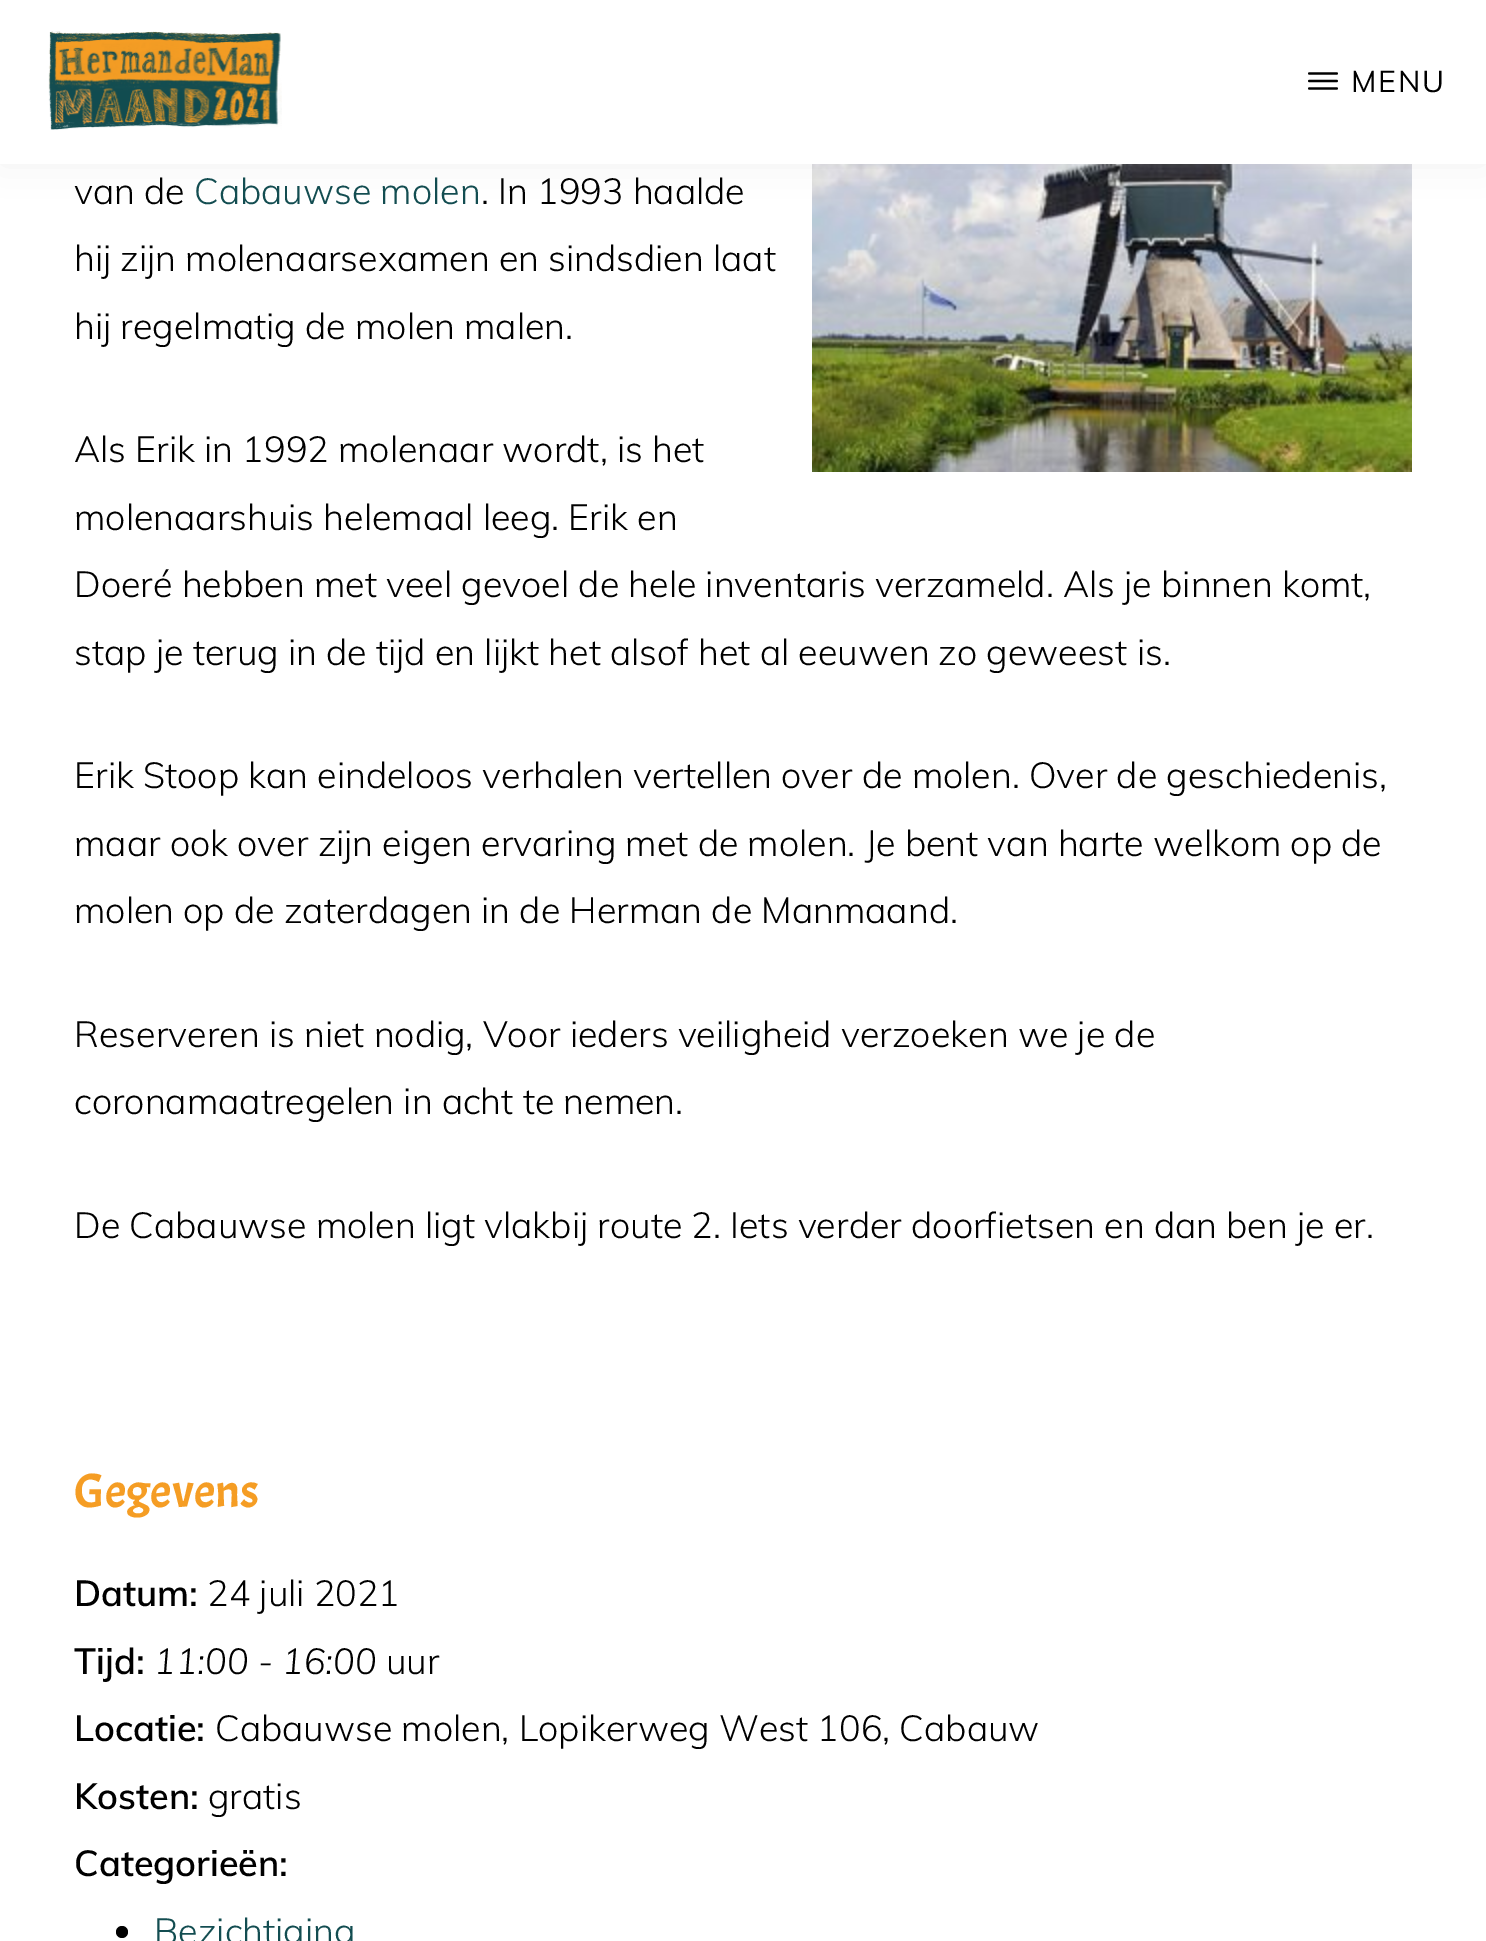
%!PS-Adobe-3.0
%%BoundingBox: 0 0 1486 1941
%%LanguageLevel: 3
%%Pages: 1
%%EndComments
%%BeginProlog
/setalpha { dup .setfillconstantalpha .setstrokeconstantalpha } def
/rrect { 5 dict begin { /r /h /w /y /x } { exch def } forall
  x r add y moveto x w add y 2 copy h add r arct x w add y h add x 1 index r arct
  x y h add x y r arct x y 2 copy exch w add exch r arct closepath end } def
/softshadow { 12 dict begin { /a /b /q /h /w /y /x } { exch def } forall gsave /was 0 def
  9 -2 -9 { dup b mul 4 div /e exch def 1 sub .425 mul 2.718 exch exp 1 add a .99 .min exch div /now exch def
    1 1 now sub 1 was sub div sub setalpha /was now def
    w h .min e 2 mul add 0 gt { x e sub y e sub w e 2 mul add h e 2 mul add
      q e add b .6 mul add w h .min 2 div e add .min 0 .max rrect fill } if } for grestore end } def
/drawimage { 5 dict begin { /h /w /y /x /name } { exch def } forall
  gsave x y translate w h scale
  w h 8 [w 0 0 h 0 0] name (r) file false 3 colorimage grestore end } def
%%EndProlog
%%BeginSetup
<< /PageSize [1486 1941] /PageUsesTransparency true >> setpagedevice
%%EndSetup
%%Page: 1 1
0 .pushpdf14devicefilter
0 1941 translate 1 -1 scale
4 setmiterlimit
1 setgray
0 0 1486 1941 rectfill
(images/3.raw) 812 164 600 308 drawimage
0 setgray
0 0 1486 164 0 20 0.05 softshadow
1 setgray
0 0 1486 164 rectfill
(images/1.raw) 48 31 234 99 drawimage
(images/2.raw) 1308 72 30 18 drawimage
0 setgray
newpath 122 1932 6 0 360 arc closepath fill
/Muli-Regular [30 0 0 -30 0 0] selectfont
1351 92 moveto 2 0 (MENU) ashow
/Muli-Light [36 0 0 -36 0 0] selectfont
74 204 moveto (van de) show
0.075 0.302 0.318 setrgbcolor
194 204 moveto (Cabauwse molen) show
0 setgray
481 204 moveto (. In 1993 haalde) show
74 271 moveto (hij zijn molenaarsexamen en sindsdien laat) show
74 339 moveto (hij regelmatig de molen malen.) show
74 462 moveto (Als Erik in 1992 molenaar wordt, is het) show
74 530 moveto (molenaarshuis helemaal leeg. Erik en) show
74 597 moveto (Doeré hebben met veel gevoel de hele inventaris verzameld. Als je binnen komt,) show
74 665 moveto (stap je terug in de tijd en lijkt het alsof het al eeuwen zo geweest is.) show
74 788 moveto (Erik Stoop kan eindeloos verhalen vertellen over de molen. Over de geschiedenis,) show
74 856 moveto (maar ook over zijn eigen ervaring met de molen. Je bent van harte welkom op de) show
74 923 moveto (molen op de zaterdagen in de Herman de Manmaand.) show
74 1047 moveto (Reserveren is niet nodig, Voor ieders veiligheid verzoeken we je de) show
74 1114 moveto (coronamaatregelen in acht te nemen.) show
74 1238 moveto (De Cabauwse molen ligt vlakbij route 2. Iets verder doorfietsen en dan ben je er.) show
/Acme-Regular [48 0 0 -48 0 0] selectfont
0.961 0.616 0.141 setrgbcolor
74 1507 moveto (Gegevens) show
/Muli-SemiBold [36 0 0 -36 0 0] selectfont
0 setgray
74 1606 moveto (Datum:) show
/Muli-Light [36 0 0 -36 0 0] selectfont
207 1606 moveto (24 juli 2021) show
/Muli-SemiBold [36 0 0 -36 0 0] selectfont
74 1674 moveto (Tijd:) show
/Muli-LightItalic [36 0 0 -36 0 0] selectfont
154 1674 moveto (11:00 - 16:00) show
/Muli-Light [36 0 0 -36 0 0] selectfont
386 1674 moveto (uur) show
/Muli-SemiBold [36 0 0 -36 0 0] selectfont
74 1741 moveto (Locatie:) show
/Muli-Light [36 0 0 -36 0 0] selectfont
215 1741 moveto (Cabauwse molen, Lopikerweg West 106, Cabauw) show
/Muli-SemiBold [36 0 0 -36 0 0] selectfont
74 1809 moveto (Kosten:) show
/Muli-Light [36 0 0 -36 0 0] selectfont
208 1809 moveto (gratis) show
/Muli-SemiBold [36 0 0 -36 0 0] selectfont
74 1876 moveto (Categorieën:) show
/Muli-Light [36 0 0 -36 0 0] selectfont
0.075 0.302 0.318 setrgbcolor
154 1944 moveto (Bezichtiging) show
.poppdf14devicefilter showpage
%%EOF
